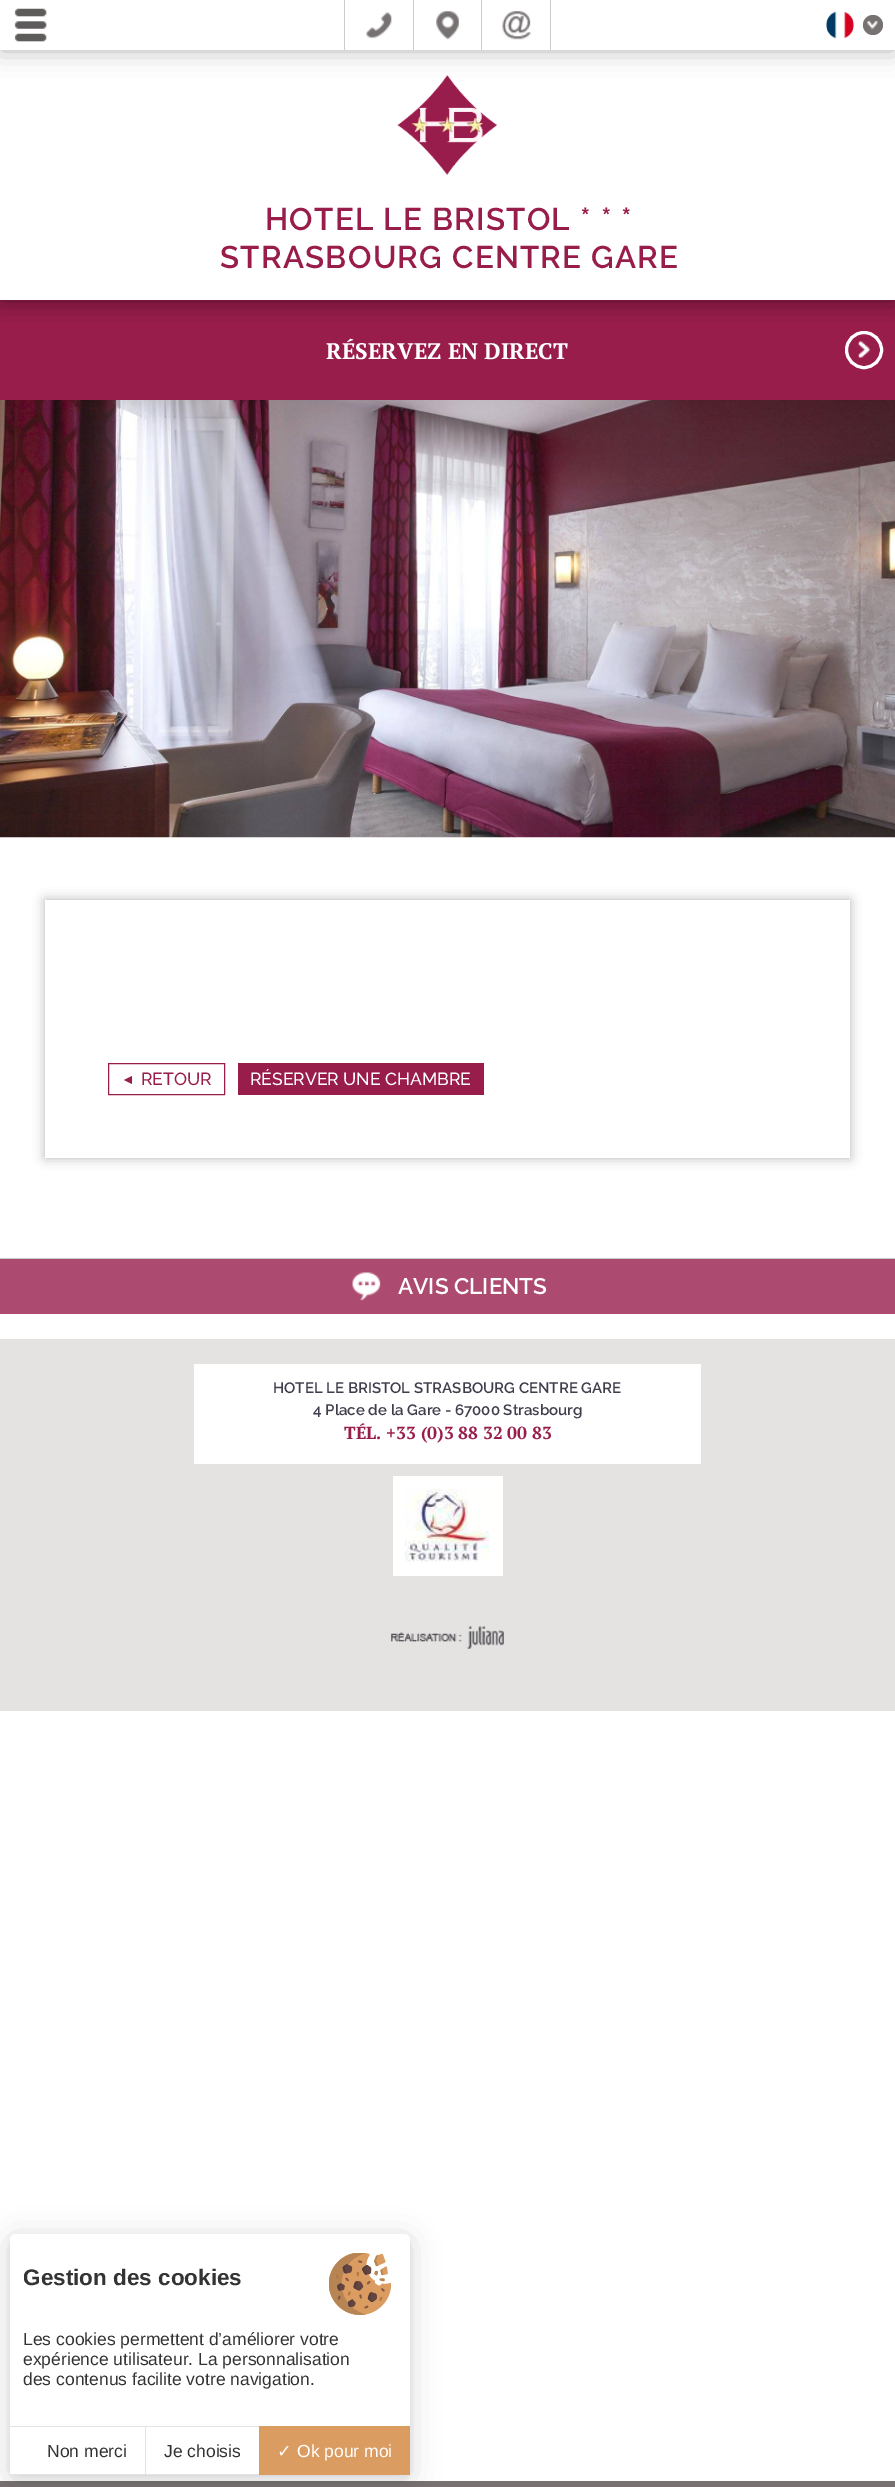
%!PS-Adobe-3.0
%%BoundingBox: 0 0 895 2487
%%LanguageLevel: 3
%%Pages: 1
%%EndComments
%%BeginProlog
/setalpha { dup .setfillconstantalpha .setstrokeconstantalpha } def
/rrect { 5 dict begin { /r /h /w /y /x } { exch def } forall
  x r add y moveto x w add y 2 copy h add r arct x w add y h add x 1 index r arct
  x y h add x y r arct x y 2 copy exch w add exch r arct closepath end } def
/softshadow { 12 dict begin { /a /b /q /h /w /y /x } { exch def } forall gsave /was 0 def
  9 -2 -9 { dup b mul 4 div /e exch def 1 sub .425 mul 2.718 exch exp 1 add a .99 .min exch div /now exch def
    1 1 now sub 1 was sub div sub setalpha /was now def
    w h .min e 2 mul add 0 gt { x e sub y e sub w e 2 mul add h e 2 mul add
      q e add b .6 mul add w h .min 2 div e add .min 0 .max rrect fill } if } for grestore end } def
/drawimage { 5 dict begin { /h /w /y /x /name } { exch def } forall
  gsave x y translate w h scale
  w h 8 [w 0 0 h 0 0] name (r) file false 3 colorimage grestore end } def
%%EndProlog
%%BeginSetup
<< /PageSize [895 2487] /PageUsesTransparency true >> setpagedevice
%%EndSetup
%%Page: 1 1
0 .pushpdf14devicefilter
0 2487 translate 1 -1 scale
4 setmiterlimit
1 setgray
0 0 895 2487 rectfill
0.6 0.114 0.294 setrgbcolor
0 300 895 100 rectfill
(images/8.raw) 858 341 13 17 drawimage
1 setgray
3 setlinewidth
newpath 864 350 17.5 0 360 arc closepath stroke
gsave
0 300 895 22 rectclip
0 setgray
0 50 895 250 0 12.5 0.5 softshadow
grestore
(images/7.raw) 397 75 101 100 drawimage
0 setgray
0 0 895 50 0 12.5 0.3 softshadow
1 setgray
0 0 895 50 rectfill
(images/1.raw) 14 8 33 34 drawimage
0.8 setgray
413 0 1 50 rectfill
344 0 1 50 rectfill
(images/2.raw) 366 12 26 27 drawimage
481 0 1 50 rectfill
(images/3.raw) 436 10 23 30 drawimage
550 0 1 50 rectfill
(images/4.raw) 502 10 30 30 drawimage
(images/5.raw) 826 11 28 28 drawimage
0.467 0.443 0.443 setrgbcolor
newpath 873 25 10 0 360 arc closepath fill
(images/6.raw) 867 21 11 9 drawimage
(images/9.raw) 0 400 895 438 drawimage
gsave
newpath 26 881 moveto 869 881 lineto 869 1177 lineto 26 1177 lineto closepath 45 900 moveto 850 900 lineto 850 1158 lineto 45 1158 lineto closepath eoclip newpath
0 setgray
45 900 805 258 0 6 0.3 softshadow
grestore
0.9 setalpha
1 setgray
45 1157 805 1 rectfill
1 setalpha
0.6 0.114 0.294 setrgbcolor
1 setlinewidth
108.5 1063.5 116 31 rectstroke
238 1063 246 32 rectfill
0.8 setgray
0 1258 895 1 rectfill
0.678 0.29 0.435 setrgbcolor
0 1259 895 55 rectfill
(images/10.raw) 352 1272 29 29 drawimage
0.894 0.89 0.886 setrgbcolor
0 1339 895 372 rectfill
1 setgray
194 1364 507 100 rectfill
393 1476 110 100 rectfill
(images/11.raw) 405 1488 85 74 drawimage
(images/12.raw) 391 1626 113 23 drawimage
0.467 0.443 0.443 setrgbcolor
0 2481 895 6 rectfill
0 setgray
10 2236 400 242 6 4 0.05 softshadow
10 2239 400 241 6 15 0.15 softshadow
1 setgray
newpath 16 2234 moveto 404 2234 lineto 407.5 2234 410 2236.5 410 2240 curveto 410 2475 lineto 10 2475 lineto 10 2240 lineto 10 2236.5 12.5 2234 16 2234 curveto closepath fill
(images/13.raw) 329 2253 62 62 drawimage
0.91 0.89 0.89 setrgbcolor
10 2426 249 1 rectfill
10 2474 249 1 rectfill
145 2426 1 49 rectfill
0.855 0.612 0.38 setrgbcolor
259 2426 151 49 rectfill
/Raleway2-Thin [31.25 0 0 -31.25 0 0] selectfont
0.6 0.114 0.294 setrgbcolor
265 230 moveto 1.25 0 (HOTEL LE BRISTOL * * *) ashow
220 268 moveto 1.25 0 (STRASBOURG CENTRE GARE) ashow
/PTSerif-Bold [22.5 0 0 -22.5 0 0] selectfont
1 setgray
326 359 moveto (RÉSERVEZ EN DIRECT) show
/LiberationSans-Regular [14 0 0 -14 0 0] selectfont
0.6 0.114 0.294 setrgbcolor
121 1084 moveto (◄) show
/Raleway-Thin [17.5 0 0 -17.5 0 0] selectfont
141 1085 moveto (RETOUR) show
1 setgray
250 1085 moveto (RÉSERVER UNE CHAMBRE) show
/Raleway2-Thin [22.5 0 0 -22.5 0 0] selectfont
398 1294 moveto (AVIS CLIENTS) show
/Raleway2-Thin [15 0 0 -15 0 0] selectfont
0.251 0.239 0.302 setrgbcolor
273 1393 moveto (HOTEL LE BRISTOL STRASBOURG CENTRE GARE) show
313 1415 moveto (4 Place de la Gare - 67000 Strasbourg) show
/PTSerif-Bold [17.5 0 0 -17.5 0 0] selectfont
0.6 0.114 0.294 setrgbcolor
344 1439 moveto (TÉL. +33 \(0\)3 88 32 00 83) show
/LiberationSans-Bold [22.5 0 0 -22.5 0 0] selectfont
0.2 setgray
23 2285 moveto (Gestion des cookies) show
/LiberationSans-Regular [17.5 0 0 -17.5 0 0] selectfont
23 2345 moveto (Les cookies permettent d’améliorer votre) show
23 2365 moveto (expérience utilisateur. La personnalisation) show
23 2385 moveto (des contenus facilite votre navigation.) show
47 2457 moveto (Non merci) show
164 2457 moveto (Je choisis) show
/DejaVuSans-Regular [17.5 0 0 -17.5 0 0] selectfont
1 setgray
277 2457 moveto (✓) show
/LiberationSans-Regular [17.5 0 0 -17.5 0 0] selectfont
297 2457 moveto (Ok pour moi) show
.poppdf14devicefilter showpage
%%EOF
